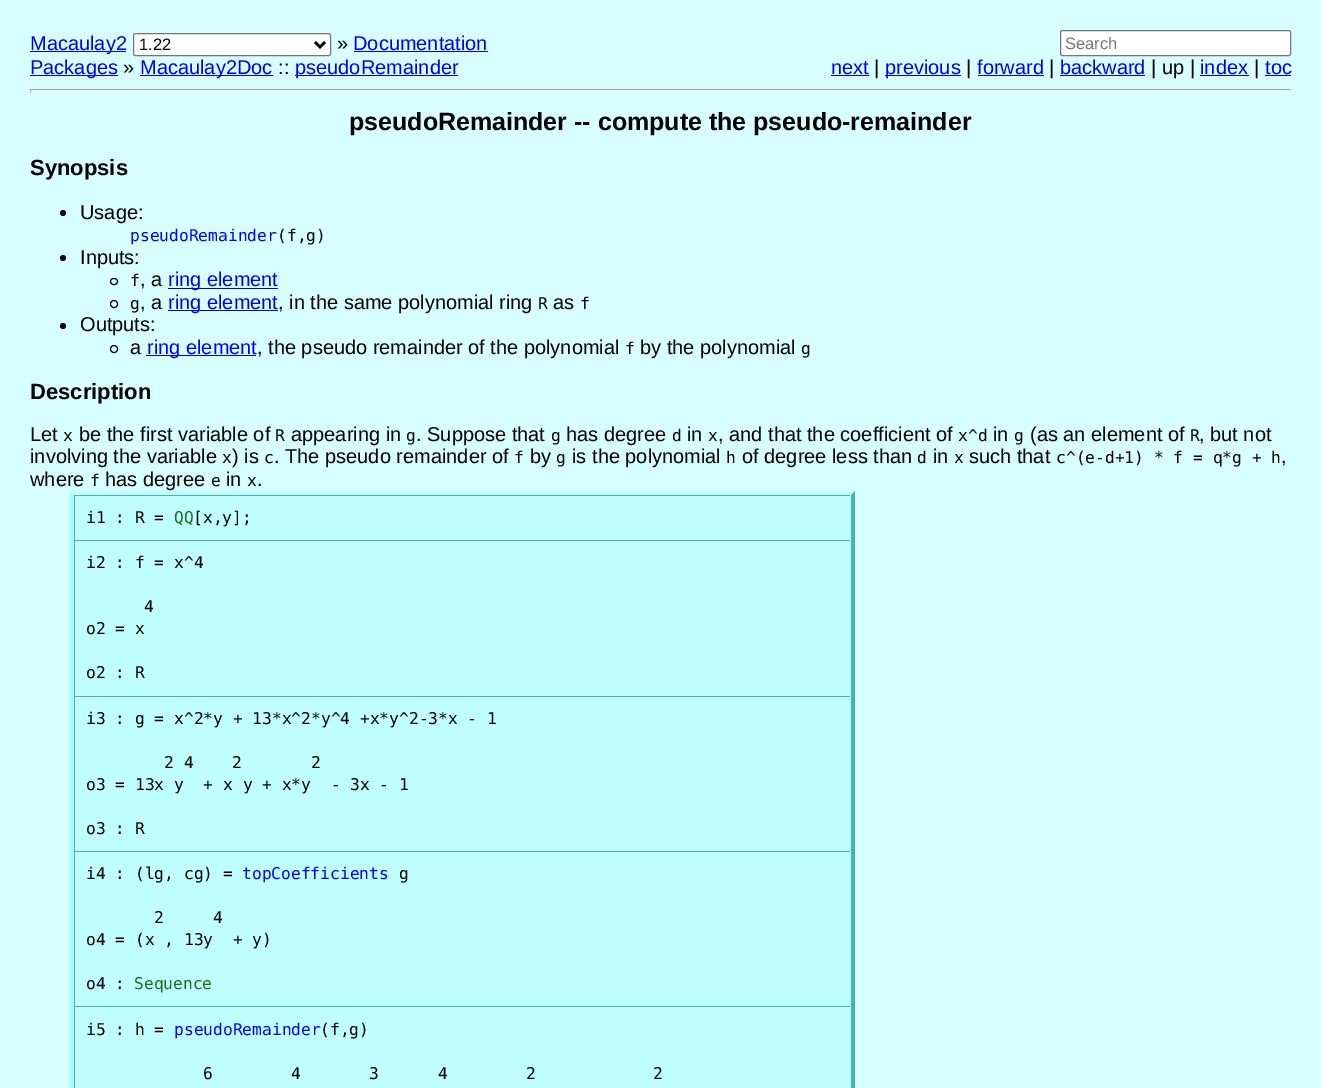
%!PS-Adobe-3.0
%%BoundingBox: 0 0 1321 1088
%%LanguageLevel: 3
%%Pages: 1
%%EndComments
%%BeginProlog
/rrect { 5 dict begin { /r /h /w /y /x } { exch def } forall
  x r add y moveto x w add y 2 copy h add r arct x w add y h add x 1 index r arct
  x y h add x y r arct x y 2 copy exch w add exch r arct closepath end } def
%%EndProlog
%%BeginSetup
<< /PageSize [1321 1088] >> setpagedevice
%%EndSetup
%%Page: 1 1
0 1088 translate 1 -1 scale
4 setmiterlimit
0.847 1 1 setrgbcolor
0 0 1321 1088 rectfill
0 0 0.933 setrgbcolor
30 51 96 1 rectfill
1 setgray
133.5 33.5 197 22 2 rrect gsave fill grestore
0.463 setgray
stroke
0 setgray
2.5 setlinewidth
newpath 315 42 moveto 320 47 lineto 325 42 lineto stroke
0 0 0.933 setrgbcolor
354 51 134 1 rectfill
30 75 88 1 rectfill
140 75 133 1 rectfill
295 75 163 1 rectfill
1 setgray
1060.5 30.5 230 25 2 rrect gsave fill grestore
0.463 setgray
1 setlinewidth
stroke
0 0 0.933 setrgbcolor
831 75 38 1 rectfill
885 75 76 1 rectfill
978 75 66 1 rectfill
1060 75 85 1 rectfill
1200 75 49 1 rectfill
1265 75 26 1 rectfill
0.624 setgray
30 89 1261 1 rectfill
0.933 setgray
1290 89 1 3 rectfill
30 90 1261 1 rectfill
0.624 setgray
30 89 1 3 rectfill
0 setgray
newpath 63 213 3 0 360 arc closepath fill
newpath 63 258 3 0 360 arc closepath fill
110.5 278.5 7 6 3 rrect stroke
0 0 0.933 setrgbcolor
168 288 110 1 rectfill
0 setgray
newpath 114 304 3.5 0 360 arc closepath stroke
0 0 0.933 setrgbcolor
168 310 110 1 rectfill
0 setgray
newpath 63 326 3 0 360 arc closepath fill
newpath 114 349 3.5 0 360 arc closepath stroke
0 0 0.933 setrgbcolor
146 355 110 1 rectfill
0.753 1 1 setrgbcolor
70 491 785 597 rectfill
0.314 0.69 0.69 setrgbcolor
newpath 855 491 moveto 855 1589 lineto 851 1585 lineto 851 495 lineto closepath fill
0.627 1 1 setrgbcolor
newpath 70 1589 moveto 70 491 lineto 74 495 lineto 74 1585 lineto closepath fill
0.314 0.69 0.69 setrgbcolor
74 495 777 1 rectfill
0.627 1 1 setrgbcolor
850 495 1 45 rectfill
0.753 1 1 setrgbcolor
850 539 1 1 rectfill
0.314 0.69 0.69 setrgbcolor
74 495 1 45 rectfill
74 540 777 1 rectfill
0.627 1 1 setrgbcolor
850 540 1 156 rectfill
0.753 1 1 setrgbcolor
850 695 1 1 rectfill
0.314 0.69 0.69 setrgbcolor
74 540 1 156 rectfill
74 696 777 1 rectfill
0.627 1 1 setrgbcolor
850 696 1 155 rectfill
0.753 1 1 setrgbcolor
850 850 1 1 rectfill
0.314 0.69 0.69 setrgbcolor
74 696 1 155 rectfill
74 851 777 1 rectfill
0.627 1 1 setrgbcolor
850 851 1 155 rectfill
0.753 1 1 setrgbcolor
850 1005 1 1 rectfill
0.314 0.69 0.69 setrgbcolor
74 851 1 155 rectfill
74 1006 777 1 rectfill
0.627 1 1 setrgbcolor
850 1006 1 82 rectfill
0.314 0.69 0.69 setrgbcolor
74 1006 1 82 rectfill
/LiberationSans-Regular [20 0 0 -20 0 0] selectfont
0 0 0.933 setrgbcolor
30 50 moveto (Macaulay2) show
/LiberationSans-Regular [16.5 0 0 -16.5 0 0] selectfont
0 setgray
139 50 moveto (1.22) show
/LiberationSans-Regular [20 0 0 -20 0 0] selectfont
337 50 moveto (») show
0 0 0.933 setrgbcolor
353 50 moveto (Documentation) show
30 74 moveto (Packages) show
0 setgray
123 74 moveto (») show
0 0 0.933 setrgbcolor
140 74 moveto (Macaulay2Doc) show
0 setgray
278 74 moveto (::) show
0 0 0.933 setrgbcolor
295 74 moveto (pseudoRemainder) show
/LiberationSans-Regular [16.5 0 0 -16.5 0 0] selectfont
0.459 setgray
1065 49 moveto (Search) show
/LiberationSans-Regular [20 0 0 -20 0 0] selectfont
0 0 0.933 setrgbcolor
831 74 moveto (next) show
0 setgray
874 74 moveto (|) show
0 0 0.933 setrgbcolor
885 74 moveto (previous) show
0 setgray
966 74 moveto (|) show
0 0 0.933 setrgbcolor
977 74 moveto (forward) show
0 setgray
1049 74 moveto (|) show
0 0 0.933 setrgbcolor
1060 74 moveto (backward) show
0 setgray
1151 74 moveto (| up |) show
0 0 0.933 setrgbcolor
1200 74 moveto (index) show
0 setgray
1254 74 moveto (|) show
0 0 0.933 setrgbcolor
1265 74 moveto (toc) show
/LiberationSans-Bold [25 0 0 -25 0 0] selectfont
0 setgray
349 130 moveto (pseudoRemainder -- compute the pseudo-remainder) show
/LiberationSans-Bold [22 0 0 -22 0 0] selectfont
30 175 moveto (Synopsis) show
/LiberationSans-Regular [20 0 0 -20 0 0] selectfont
80 219 moveto (Usage:) show
/DejaVuSansMono-Regular [16.25 0 0 -16.25 0 0] selectfont
0 0 1 setrgbcolor
130 241 moveto (pseudoRemainder) show
0 setgray
277 241 moveto (\(f,g\)) show
/LiberationSans-Regular [20 0 0 -20 0 0] selectfont
80 264 moveto (Inputs:) show
/DejaVuSansMono-Regular [16.25 0 0 -16.25 0 0] selectfont
130 286 moveto (f) show
/LiberationSans-Regular [20 0 0 -20 0 0] selectfont
140 286 moveto (, a) show
0 0 0.933 setrgbcolor
168 286 moveto (ring element) show
/DejaVuSansMono-Regular [16.25 0 0 -16.25 0 0] selectfont
0 setgray
130 309 moveto (g) show
/LiberationSans-Regular [20 0 0 -20 0 0] selectfont
140 309 moveto (, a) show
0 0 0.933 setrgbcolor
168 309 moveto (ring element) show
0 setgray
278 309 moveto (, in the same polynomial ring) show
/DejaVuSansMono-Regular [16.25 0 0 -16.25 0 0] selectfont
538 309 moveto (R) show
/LiberationSans-Regular [20 0 0 -20 0 0] selectfont
553 309 moveto (as) show
/DejaVuSansMono-Regular [16.25 0 0 -16.25 0 0] selectfont
580 309 moveto (f) show
/LiberationSans-Regular [20 0 0 -20 0 0] selectfont
80 331 moveto (Outputs:) show
130 354 moveto (a) show
0 0 0.933 setrgbcolor
147 354 moveto (ring element) show
0 setgray
257 354 moveto (, the pseudo remainder of the polynomial) show
/DejaVuSansMono-Regular [16.25 0 0 -16.25 0 0] selectfont
625 354 moveto (f) show
/LiberationSans-Regular [20 0 0 -20 0 0] selectfont
640 354 moveto (by the polynomial) show
/DejaVuSansMono-Regular [16.25 0 0 -16.25 0 0] selectfont
801 354 moveto (g) show
/LiberationSans-Bold [22 0 0 -22 0 0] selectfont
30 399 moveto (Description) show
/LiberationSans-Regular [20 0 0 -20 0 0] selectfont
30 441 moveto (Let) show
/DejaVuSansMono-Regular [16.25 0 0 -16.25 0 0] selectfont
63 441 moveto (x) show
/LiberationSans-Regular [20 0 0 -20 0 0] selectfont
79 441 moveto (be the first variable of) show
/DejaVuSansMono-Regular [16.25 0 0 -16.25 0 0] selectfont
275 441 moveto (R) show
/LiberationSans-Regular [20 0 0 -20 0 0] selectfont
291 441 moveto (appearing in) show
/DejaVuSansMono-Regular [16.25 0 0 -16.25 0 0] selectfont
406 441 moveto (g) show
/LiberationSans-Regular [20 0 0 -20 0 0] selectfont
416 441 moveto (. Suppose that) show
/DejaVuSansMono-Regular [16.25 0 0 -16.25 0 0] selectfont
551 441 moveto (g) show
/LiberationSans-Regular [20 0 0 -20 0 0] selectfont
566 441 moveto (has degree) show
/DejaVuSansMono-Regular [16.25 0 0 -16.25 0 0] selectfont
672 441 moveto (d) show
/LiberationSans-Regular [20 0 0 -20 0 0] selectfont
687 441 moveto (in) show
/DejaVuSansMono-Regular [16.25 0 0 -16.25 0 0] selectfont
708 441 moveto (x) show
/LiberationSans-Regular [20 0 0 -20 0 0] selectfont
718 441 moveto (, and that the coefficient of) show
/DejaVuSansMono-Regular [16.25 0 0 -16.25 0 0] selectfont
958 441 moveto (x^d) show
/LiberationSans-Regular [20 0 0 -20 0 0] selectfont
993 441 moveto (in) show
/DejaVuSansMono-Regular [16.25 0 0 -16.25 0 0] selectfont
1014 441 moveto (g) show
/LiberationSans-Regular [20 0 0 -20 0 0] selectfont
1030 441 moveto (\(as an element of) show
/DejaVuSansMono-Regular [16.25 0 0 -16.25 0 0] selectfont
1190 441 moveto (R) show
/LiberationSans-Regular [20 0 0 -20 0 0] selectfont
1199 441 moveto (, but not) show
30 463 moveto (involving the variable) show
/DejaVuSansMono-Regular [16.25 0 0 -16.25 0 0] selectfont
222 463 moveto (x) show
/LiberationSans-Regular [20 0 0 -20 0 0] selectfont
232 463 moveto (\) is) show
/DejaVuSansMono-Regular [16.25 0 0 -16.25 0 0] selectfont
264 463 moveto (c) show
/LiberationSans-Regular [20 0 0 -20 0 0] selectfont
274 463 moveto (. The pseudo remainder of) show
/DejaVuSansMono-Regular [16.25 0 0 -16.25 0 0] selectfont
514 463 moveto (f) show
/LiberationSans-Regular [20 0 0 -20 0 0] selectfont
530 463 moveto (by) show
/DejaVuSansMono-Regular [16.25 0 0 -16.25 0 0] selectfont
556 463 moveto (g) show
/LiberationSans-Regular [20 0 0 -20 0 0] selectfont
572 463 moveto (is the polynomial) show
/DejaVuSansMono-Regular [16.25 0 0 -16.25 0 0] selectfont
726 463 moveto (h) show
/LiberationSans-Regular [20 0 0 -20 0 0] selectfont
742 463 moveto (of degree less than) show
/DejaVuSansMono-Regular [16.25 0 0 -16.25 0 0] selectfont
917 463 moveto (d) show
/LiberationSans-Regular [20 0 0 -20 0 0] selectfont
933 463 moveto (in) show
/DejaVuSansMono-Regular [16.25 0 0 -16.25 0 0] selectfont
954 463 moveto (x) show
/LiberationSans-Regular [20 0 0 -20 0 0] selectfont
969 463 moveto (such that) show
/DejaVuSansMono-Regular [16.25 0 0 -16.25 0 0] selectfont
1056 463 moveto (c^\(e-d+1\) * f = q*g + h) show
/LiberationSans-Regular [20 0 0 -20 0 0] selectfont
1281 463 moveto (,) show
30 486 moveto (where) show
/DejaVuSansMono-Regular [16.25 0 0 -16.25 0 0] selectfont
90 486 moveto (f) show
/LiberationSans-Regular [20 0 0 -20 0 0] selectfont
105 486 moveto (has degree) show
/DejaVuSansMono-Regular [16.25 0 0 -16.25 0 0] selectfont
211 486 moveto (e) show
/LiberationSans-Regular [20 0 0 -20 0 0] selectfont
226 486 moveto (in) show
/DejaVuSansMono-Regular [16.25 0 0 -16.25 0 0] selectfont
247 486 moveto (x) show
/LiberationSans-Regular [20 0 0 -20 0 0] selectfont
257 486 moveto (.) show
/DejaVuSansMono-Regular [16.25 0 0 -16.25 0 0] selectfont
86 523 moveto (i1 : R =) show
0.11 0.439 0.11 setrgbcolor
174 523 moveto (QQ) show
0 setgray
193 523 moveto ([x,y];) show
86 568 moveto (i2 : f = x^4) show
144 612 moveto (4) show
86 634 moveto (o2 = x) show
86 678 moveto (o2 : R) show
86 724 moveto (i3 : g = x^2*y + 13*x^2*y^4 +x*y^2-3*x - 1) show
164 768 moveto (2 4    2       2) show
86 790 moveto (o3 = 13x y  + x y + x*y  - 3x - 1) show
86 834 moveto (o3 : R) show
86 879 moveto (i4 : \(lg, cg\) =) show
0 0 1 setrgbcolor
242 879 moveto (topCoefficients) show
0 setgray
399 879 moveto (g) show
154 923 moveto (2     4) show
86 945 moveto (o4 = \(x , 13y  + y\)) show
86 989 moveto (o4 :) show
0.11 0.439 0.11 setrgbcolor
134 989 moveto (Sequence) show
0 setgray
86 1035 moveto (i5 : h =) show
0 0 1 setrgbcolor
174 1035 moveto (pseudoRemainder) show
0 setgray
320 1035 moveto (\(f,g\)) show
203 1079 moveto (6        4       3      4        2            2) show
showpage
%%EOF
